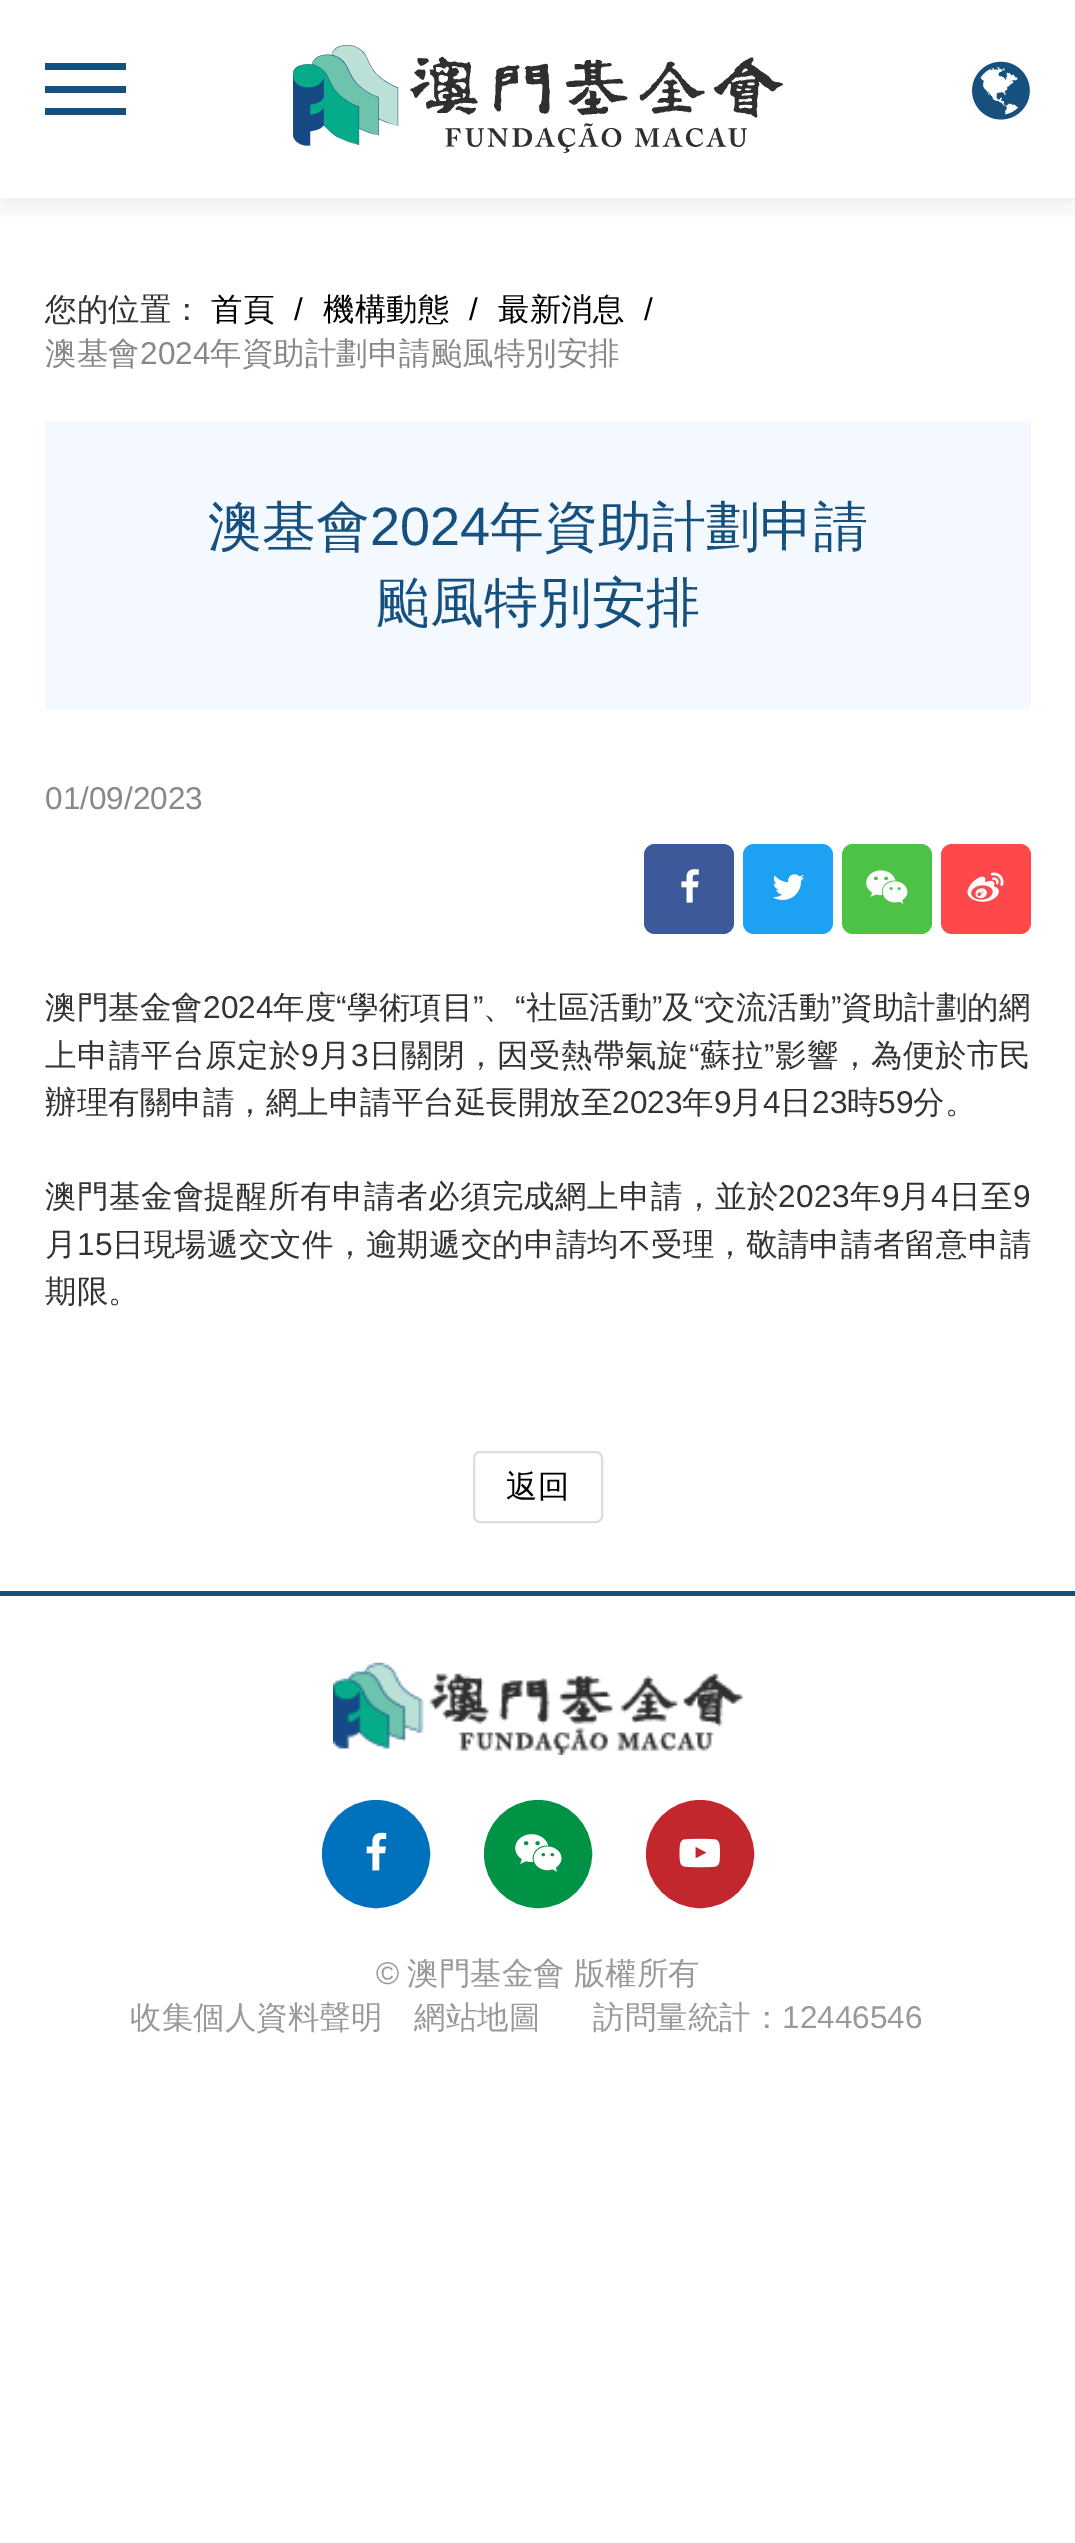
%!PS-Adobe-3.0
%%BoundingBox: 0 0 1075 2543
%%LanguageLevel: 3
%%Pages: 1
%%EndComments
%%BeginProlog
/setalpha { dup .setfillconstantalpha .setstrokeconstantalpha } def
/rrect { 5 dict begin { /r /h /w /y /x } { exch def } forall
  x r add y moveto x w add y 2 copy h add r arct x w add y h add x 1 index r arct
  x y h add x y r arct x y 2 copy exch w add exch r arct closepath end } def
/softshadow { 12 dict begin { /a /b /q /h /w /y /x } { exch def } forall gsave /was 0 def
  9 -2 -9 { dup b mul 4 div /e exch def 1 sub .425 mul 2.718 exch exp 1 add a .99 .min exch div /now exch def
    1 1 now sub 1 was sub div sub setalpha /was now def
    w h .min e 2 mul add 0 gt { x e sub y e sub w e 2 mul add h e 2 mul add
      q e add b .6 mul add w h .min 2 div e add .min 0 .max rrect fill } if } for grestore end } def
/drawimage { 5 dict begin { /h /w /y /x /name } { exch def } forall
  gsave x y translate w h scale
  w h 8 [w 0 0 h 0 0] name (r) file false 3 colorimage grestore end } def
%%EndProlog
%%BeginSetup
<< /PageSize [1075 2543] /PageUsesTransparency true >> setpagedevice
%%EndSetup
%%Page: 1 1
0 .pushpdf14devicefilter
0 2543 translate 1 -1 scale
4 setmiterlimit
1 setgray
0 0 1075 2543 rectfill
gsave
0 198 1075 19 rectclip
0 setgray
0 0 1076 198 0 22.5 0.1 softshadow
grestore
0.082 0.314 0.498 setrgbcolor
45 86 81 7 rectfill
45 63 81 7 rectfill
45 108 81 7 rectfill
(images/1.raw) 293 45 490 108 drawimage
(images/2.raw) 972 61 58 59 drawimage
0.953 0.976 1 setrgbcolor
45 421 986 288 rectfill
0.235 0.353 0.6 setrgbcolor
644 844 90 90 11 rrect fill
(images/3.raw) 681 869 18 34 drawimage
0.114 0.631 0.949 setrgbcolor
743 844 90 90 11 rrect fill
(images/4.raw) 772 874 33 26 drawimage
0.302 0.761 0.278 setrgbcolor
842 844 90 90 11 rrect fill
(images/5.raw) 866 870 42 34 drawimage
0.996 0.282 0.298 setrgbcolor
941 844 90 90 11 rrect fill
(images/6.raw) 967 872 37 30 drawimage
0.867 setgray
2 setlinewidth
474 1452 128 70 6 rrect stroke
0.082 0.314 0.498 setrgbcolor
0 1591 1075 5 rectfill
(images/7.raw) 333 1662 410 93 drawimage
0 0.443 0.737 setrgbcolor
newpath 376 1854 51.5 0 360 arc closepath gsave fill grestore
5 setlinewidth
stroke
(images/8.raw) 366 1832 21 39 drawimage
0 0.573 0.271 setrgbcolor
newpath 538 1854 51.5 0 360 arc closepath gsave fill grestore
stroke
(images/9.raw) 515 1834 47 38 drawimage
0.757 0.153 0.176 setrgbcolor
newpath 700 1854 51.5 0 360 arc closepath gsave fill grestore
stroke
(images/10.raw) 679 1838 41 30 drawimage
/WenQuanYiZenHei-Medium [31.5 0 0 -31.5 0 0] selectfont
0.2 setgray
45 320 moveto (您的位置：) show
0 setgray
211 320 moveto (首頁) show
/LiberationSans-Regular [31.5 0 0 -31.5 0 0] selectfont
294 320 moveto (/) show
/WenQuanYiZenHei-Medium [31.5 0 0 -31.5 0 0] selectfont
323 320 moveto (機構動態) show
/LiberationSans-Regular [31.5 0 0 -31.5 0 0] selectfont
469 320 moveto (/) show
/WenQuanYiZenHei-Medium [31.5 0 0 -31.5 0 0] selectfont
498 320 moveto (最新消息) show
/LiberationSans-Regular [31.5 0 0 -31.5 0 0] selectfont
644 320 moveto (/) show
/WenQuanYiZenHei-Medium [31.5 0 0 -31.5 0 0] selectfont
0.533 setgray
45 364 moveto (澳基會) show
/LiberationSans-Regular [31.5 0 0 -31.5 0 0] selectfont
140 364 moveto (2024) show
/WenQuanYiZenHei-Medium [31.5 0 0 -31.5 0 0] selectfont
210 364 moveto (年資助計劃申請颱風特別安排) show
/WenQuanYiZenHei-Medium [54 0 0 -54 0 0] selectfont
0.082 0.314 0.498 setrgbcolor
208 545 moveto (澳基會) show
/LiberationSans-Regular [54 0 0 -54 0 0] selectfont
370 545 moveto (2024) show
/WenQuanYiZenHei-Medium [54 0 0 -54 0 0] selectfont
490 545 moveto (年資助計劃申請) show
376 621 moveto (颱風特別安排) show
/LiberationSans-Regular [31.5 0 0 -31.5 0 0] selectfont
0.533 setgray
45 809 moveto (01/09/2023) show
/WenQuanYiZenHei-Medium [31.5 0 0 -31.5 0 0] selectfont
0.2 setgray
45 1018 moveto (澳門基金會) show
/LiberationSans-Regular [31.5 0 0 -31.5 0 0] selectfont
203 1018 moveto (2024) show
/WenQuanYiZenHei-Medium [31.5 0 0 -31.5 0 0] selectfont
273 1018 moveto (年度) show
/LiberationSans-Regular [31.5 0 0 -31.5 0 0] selectfont
336 1018 moveto (“) show
/WenQuanYiZenHei-Medium [31.5 0 0 -31.5 0 0] selectfont
347 1018 moveto (學術項目) show
/LiberationSans-Regular [31.5 0 0 -31.5 0 0] selectfont
473 1018 moveto (”) show
515 1018 moveto (“) show
/WenQuanYiZenHei-Medium [31.5 0 0 -31.5 0 0] selectfont
526 1018 moveto (社區活動) show
/LiberationSans-Regular [31.5 0 0 -31.5 0 0] selectfont
652 1018 moveto (”) show
/WenQuanYiZenHei-Medium [31.5 0 0 -31.5 0 0] selectfont
662 1018 moveto (及) show
/LiberationSans-Regular [31.5 0 0 -31.5 0 0] selectfont
694 1018 moveto (“) show
/WenQuanYiZenHei-Medium [31.5 0 0 -31.5 0 0] selectfont
704 1018 moveto (交流活動) show
/LiberationSans-Regular [31.5 0 0 -31.5 0 0] selectfont
831 1018 moveto (”) show
/WenQuanYiZenHei-Medium [31.5 0 0 -31.5 0 0] selectfont
841 1018 moveto (資助計劃的網) show
483 1018 moveto (、) show
45 1066 moveto 0.5 0 (上申請平台原定於) ashow
/LiberationSans-Regular [31.5 0 0 -31.5 0 0] selectfont
301 1066 moveto 0.5 0 (9) ashow
/WenQuanYiZenHei-Medium [31.5 0 0 -31.5 0 0] selectfont
319 1066 moveto 0.5 0 (月) ashow
/LiberationSans-Regular [31.5 0 0 -31.5 0 0] selectfont
351 1066 moveto 0.5 0 (3) ashow
/WenQuanYiZenHei-Medium [31.5 0 0 -31.5 0 0] selectfont
369 1066 moveto 0.5 0 (日關閉，因受熱帶氣旋) ashow
/LiberationSans-Regular [31.5 0 0 -31.5 0 0] selectfont
689 1066 moveto 0.5 0 (“) ashow
/WenQuanYiZenHei-Medium [31.5 0 0 -31.5 0 0] selectfont
700 1066 moveto 0.5 0 (蘇拉) ashow
/LiberationSans-Regular [31.5 0 0 -31.5 0 0] selectfont
764 1066 moveto 0.5 0 (”) ashow
/WenQuanYiZenHei-Medium [31.5 0 0 -31.5 0 0] selectfont
775 1066 moveto 0.5 0 (影響，為便於市民) ashow
45 1113 moveto (辦理有關申請，網上申請平台延長開放至) show
/LiberationSans-Regular [31.5 0 0 -31.5 0 0] selectfont
612 1113 moveto (2023) show
/WenQuanYiZenHei-Medium [31.5 0 0 -31.5 0 0] selectfont
682 1113 moveto (年) show
/LiberationSans-Regular [31.5 0 0 -31.5 0 0] selectfont
714 1113 moveto (9) show
/WenQuanYiZenHei-Medium [31.5 0 0 -31.5 0 0] selectfont
731 1113 moveto (月) show
/LiberationSans-Regular [31.5 0 0 -31.5 0 0] selectfont
763 1113 moveto (4) show
/WenQuanYiZenHei-Medium [31.5 0 0 -31.5 0 0] selectfont
780 1113 moveto (日) show
/LiberationSans-Regular [31.5 0 0 -31.5 0 0] selectfont
812 1113 moveto (23) show
/WenQuanYiZenHei-Medium [31.5 0 0 -31.5 0 0] selectfont
847 1113 moveto (時) show
/LiberationSans-Regular [31.5 0 0 -31.5 0 0] selectfont
878 1113 moveto (59) show
/WenQuanYiZenHei-Medium [31.5 0 0 -31.5 0 0] selectfont
913 1113 moveto (分。) show
45 1207 moveto 0.4 0 (澳門基金會提醒所有申請者必須完成網上申請，並於) ashow
/LiberationSans-Regular [31.5 0 0 -31.5 0 0] selectfont
778 1207 moveto 0.4 0 (2023) ashow
/WenQuanYiZenHei-Medium [31.5 0 0 -31.5 0 0] selectfont
850 1207 moveto 0.4 0 (年) ashow
/LiberationSans-Regular [31.5 0 0 -31.5 0 0] selectfont
882 1207 moveto 0.4 0 (9) ashow
/WenQuanYiZenHei-Medium [31.5 0 0 -31.5 0 0] selectfont
899 1207 moveto 0.4 0 (月) ashow
/LiberationSans-Regular [31.5 0 0 -31.5 0 0] selectfont
931 1207 moveto 0.4 0 (4) ashow
/WenQuanYiZenHei-Medium [31.5 0 0 -31.5 0 0] selectfont
949 1207 moveto 0.4 0 (日至) ashow
/LiberationSans-Regular [31.5 0 0 -31.5 0 0] selectfont
1013 1207 moveto 0.4 0 (9) ashow
/WenQuanYiZenHei-Medium [31.5 0 0 -31.5 0 0] selectfont
45 1255 moveto 0.2 0 (月) ashow
/LiberationSans-Regular [31.5 0 0 -31.5 0 0] selectfont
77 1255 moveto 0.2 0 (15) ashow
/WenQuanYiZenHei-Medium [31.5 0 0 -31.5 0 0] selectfont
112 1255 moveto 0.2 0 (日現場遞交文件，逾期遞交的申請均不受理，敬請申請者留意申請) ashow
45 1302 moveto (期限。) show
0 setgray
506 1497 moveto (返回) show
/LiberationSans-Regular [31.5 0 0 -31.5 0 0] selectfont
0.6 setgray
376 1984 moveto (©) show
/WenQuanYiZenHei-Medium [31.5 0 0 -31.5 0 0] selectfont
407 1984 moveto (澳門基金會 版權所有) show
130 2028 moveto (收集個人資料聲明) show
414 2028 moveto (網站地圖) show
593 2028 moveto (訪問量統計：) show
/LiberationSans-Regular [31.5 0 0 -31.5 0 0] selectfont
782 2028 moveto (12446546) show
.poppdf14devicefilter showpage
%%EOF
